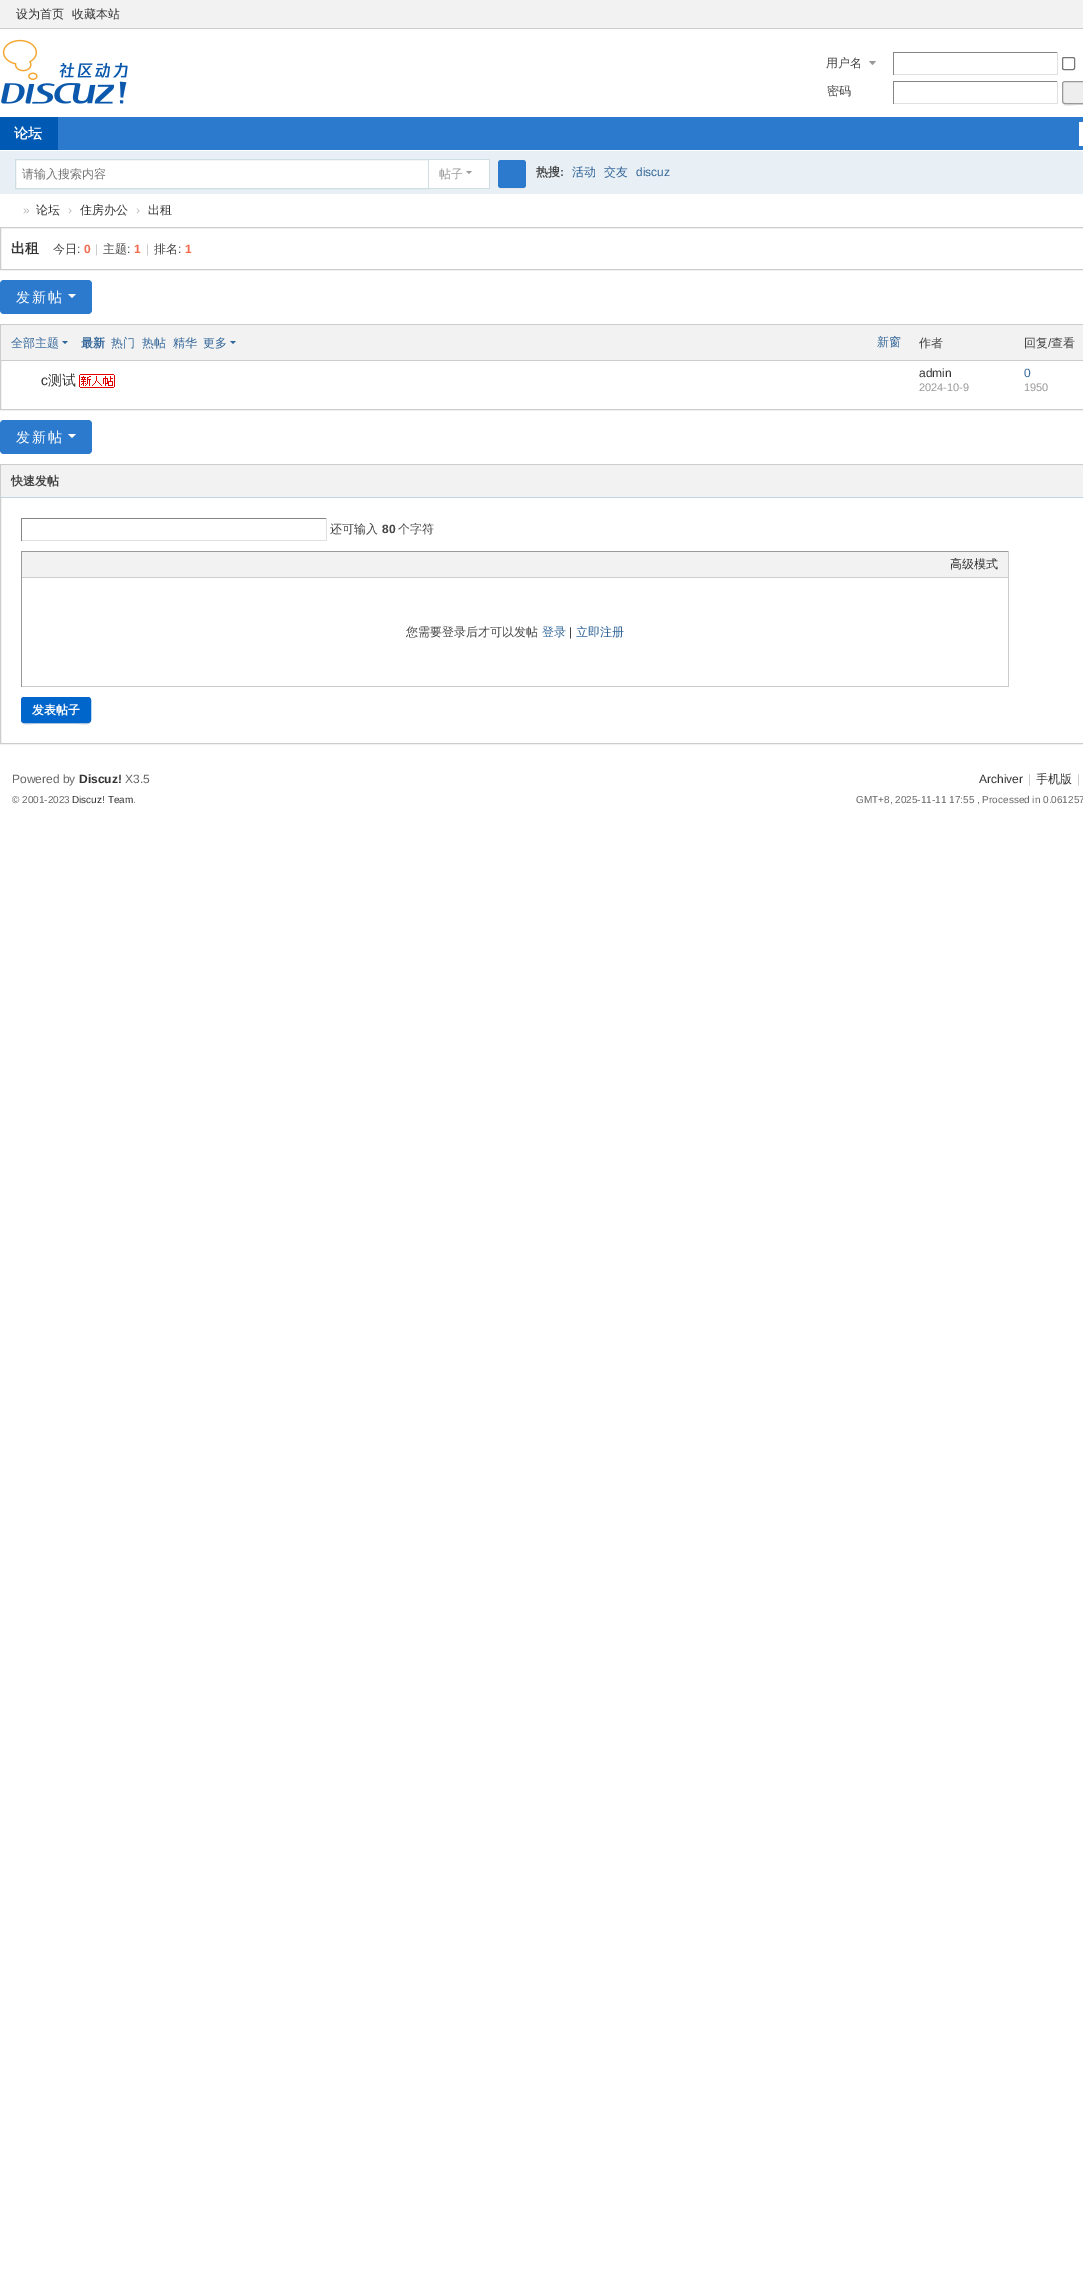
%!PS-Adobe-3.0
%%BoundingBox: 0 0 1083 2296
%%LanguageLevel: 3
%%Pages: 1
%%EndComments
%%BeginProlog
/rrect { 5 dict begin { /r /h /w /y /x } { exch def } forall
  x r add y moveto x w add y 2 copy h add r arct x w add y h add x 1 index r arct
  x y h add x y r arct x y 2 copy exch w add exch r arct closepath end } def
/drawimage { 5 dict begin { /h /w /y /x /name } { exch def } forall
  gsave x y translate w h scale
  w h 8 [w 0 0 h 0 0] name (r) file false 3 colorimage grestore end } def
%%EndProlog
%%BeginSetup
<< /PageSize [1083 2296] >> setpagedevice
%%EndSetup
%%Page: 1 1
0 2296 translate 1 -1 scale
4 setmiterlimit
1 setgray
0 0 1083 2296 rectfill
0.949 setgray
0 0 1083 28 rectfill
0.804 setgray
0 28 1083 1 rectfill
(images/1.raw) 1 39 127 65 drawimage
0.6 setgray
newpath 876 61 moveto 869 61 lineto 872.5 65 lineto closepath fill
0.518 setgray
893 52 165 1 rectfill
0.878 setgray
1057 52 1 23 rectfill
893 74 165 1 rectfill
0.518 setgray
893 52 1 23 rectfill
0.463 setgray
1062.5 57.5 12 12 1.5 rrect stroke
0.518 setgray
893 81 165 1 rectfill
0.878 setgray
1057 81 1 23 rectfill
893 103 165 1 rectfill
0.518 setgray
893 81 1 23 rectfill
0.898 setgray
newpath 1062 101 moveto 1062 108 1072 105 1076 105 curveto 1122 105 lineto 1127 105 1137 108 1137 101 curveto 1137 103 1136 104 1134 104 curveto 1065 104 lineto 1063 104 1062 103 1062 101 curveto closepath fill
0.933 setgray
1062.5 81.5 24 22 2.5 rrect gsave fill grestore
0.6 setgray
stroke
0.169 0.478 0.804 setrgbcolor
58 117 1025 33 rectfill
0 0.353 0.706 setrgbcolor
0 117 58 33 rectfill
1 setgray
1079 122 4 24 rectfill
0.91 0.937 0.961 setrgbcolor
0 151 1083 43 rectfill
0.812 0.871 0.89 setrgbcolor
427 159 63 1 rectfill
489 159 1 30 rectfill
427 188 63 1 rectfill
1 setgray
newpath 15.5 159.5 moveto 428.5 159.5 lineto 428.5 188.5 lineto 15.5 188.5 lineto closepath gsave fill grestore
0.812 0.871 0.89 setrgbcolor
stroke
1 setgray
429 160 60 28 rectfill
0.6 setgray
newpath 466 171 moveto 472 171 lineto 469 174 lineto closepath fill
0.898 setgray
newpath 498 185 moveto 498 189.5 501 189 504.5 189 curveto 519.5 189 lineto 523 189 526 189.5 526 185 curveto 526 186.5 524.5 188 523 188 curveto 501 188 lineto 499.5 188 498 186.5 498 185 curveto closepath fill
0.169 0.478 0.804 setrgbcolor
498 160 28 28 3 rrect fill
0.804 setgray
0.5 227.5 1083 42 rectstroke
0.169 0.478 0.804 setrgbcolor
0 280 92 34 4 rrect fill
1 setgray
newpath 68 294 moveto 76 294 lineto 72 298 lineto closepath fill
0.804 setgray
0.5 324.5 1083 85 rectstroke
0.949 setgray
1 326 1082 34 rectfill
0.804 setgray
1 360 1082 1 rectfill
0.2 0.4 0.6 setrgbcolor
newpath 62 341 moveto 68 341 lineto 65 344 lineto closepath fill
newpath 230 341 moveto 236 341 lineto 233 344 lineto closepath fill
(images/2.raw) 79 374 36 14 drawimage
0.169 0.478 0.804 setrgbcolor
0 420 92 34 4 rrect fill
1 setgray
newpath 68 434 moveto 76 434 lineto 72 438 lineto closepath fill
0.804 setgray
0.5 464.5 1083 279 rectstroke
0.949 setgray
1 466 1082 31 rectfill
0.761 0.835 0.89 setrgbcolor
1 497 1082 1 rectfill
0.518 setgray
21 518 306 1 rectfill
0.878 setgray
326 518 1 23 rectfill
21 540 306 1 rectfill
0.518 setgray
21 518 1 23 rectfill
0.6 setgray
21 551 988 1 rectfill
0.8 setgray
1008 551 1 136 rectfill
21 686 988 1 rectfill
0.6 setgray
21 551 1 136 rectfill
0.949 setgray
22 552 986 25 rectfill
0.804 setgray
22 577 986 1 rectfill
0.898 setgray
newpath 21 720 moveto 21 727 30 724 35 724 curveto 77 724 lineto 82 724 91 727 91 720 curveto 91 722 90 723 88 723 curveto 24 723 lineto 22 723 21 722 21 720 curveto closepath fill
0 0.4 0.8 setrgbcolor
21.5 697.5 69 25 2.5 rrect gsave fill grestore
stroke
/WenQuanYiZenHei-Medium [12 0 0 -12 0 0] selectfont
0.2 setgray
16 18 moveto (设为首页) show
72 18 moveto (收藏本站) show
0.267 setgray
826 67 moveto (用户名) show
827 95 moveto (密码) show
/WenQuanYiZenHei-Bold [14 0 0 -14 0 0] selectfont
1 setgray
14 138 moveto (论坛) show
/WenQuanYiZenHei-Medium [12 0 0 -12 0 0] selectfont
0.459 setgray
22 178 moveto (请输入搜索内容) show
0.6 setgray
439 178 moveto (帖子) show
/WenQuanYiZenHei-Bold [12 0 0 -12 0 0] selectfont
0.267 setgray
536 176 moveto (热搜) show
/LiberationSans-Bold [12 0 0 -12 0 0] selectfont
560 176 moveto (:) show
/WenQuanYiZenHei-Medium [12 0 0 -12 0 0] selectfont
0.2 0.4 0.6 setrgbcolor
572 176 moveto (活动) show
604 176 moveto (交友) show
/LiberationSans-Regular [12 0 0 -12 0 0] selectfont
636 176 moveto (discuz) show
0.741 setgray
23 214 moveto (») show
/WenQuanYiZenHei-Medium [12 0 0 -12 0 0] selectfont
0.2 setgray
36 214 moveto (论坛) show
/LiberationSans-Regular [12 0 0 -12 0 0] selectfont
0.741 setgray
68 214 moveto (›) show
/WenQuanYiZenHei-Medium [12 0 0 -12 0 0] selectfont
0.2 setgray
80 214 moveto (住房办公) show
/LiberationSans-Regular [12 0 0 -12 0 0] selectfont
0.741 setgray
136 214 moveto (›) show
/WenQuanYiZenHei-Medium [12 0 0 -12 0 0] selectfont
0.2 setgray
148 214 moveto (出租) show
/WenQuanYiZenHei-Bold [14 0 0 -14 0 0] selectfont
11 253 moveto (出租) show
/WenQuanYiZenHei-Medium [12 0 0 -12 0 0] selectfont
0.267 setgray
53 253 moveto (今日) show
/LiberationSans-Regular [12 0 0 -12 0 0] selectfont
77 253 moveto (:) show
/LiberationSans-Bold [12 0 0 -12 0 0] selectfont
0.949 0.424 0.31 setrgbcolor
84 253 moveto (0) show
/LiberationSans-Regular [12 0 0 -12 0 0] selectfont
0.8 setgray
95 253 moveto (|) show
/WenQuanYiZenHei-Medium [12 0 0 -12 0 0] selectfont
0.267 setgray
103 253 moveto (主题) show
/LiberationSans-Regular [12 0 0 -12 0 0] selectfont
127 253 moveto (:) show
/LiberationSans-Bold [12 0 0 -12 0 0] selectfont
0.949 0.424 0.31 setrgbcolor
134 253 moveto (1) show
/LiberationSans-Regular [12 0 0 -12 0 0] selectfont
0.8 setgray
146 253 moveto (|) show
/WenQuanYiZenHei-Medium [12 0 0 -12 0 0] selectfont
0.267 setgray
154 253 moveto (排名) show
/LiberationSans-Regular [12 0 0 -12 0 0] selectfont
178 253 moveto (:) show
/LiberationSans-Bold [12 0 0 -12 0 0] selectfont
0.949 0.424 0.31 setrgbcolor
185 253 moveto (1) show
/WenQuanYiZenHei-Medium [14 0 0 -14 0 0] selectfont
1 setgray
16 302 moveto 2 0 (发新帖) ashow
/WenQuanYiZenHei-Medium [12 0 0 -12 0 0] selectfont
0.2 0.4 0.6 setrgbcolor
11 347 moveto (全部主题) show
/WenQuanYiZenHei-Bold [12 0 0 -12 0 0] selectfont
81 347 moveto (最新) show
/WenQuanYiZenHei-Medium [12 0 0 -12 0 0] selectfont
111 347 moveto (热门) show
142 347 moveto (热帖) show
173 347 moveto (精华) show
203 347 moveto (更多) show
877 346 moveto (新窗) show
0.267 setgray
919 347 moveto (作者) show
1024 347 moveto (回复) show
/LiberationSans-Regular [12 0 0 -12 0 0] selectfont
1048 347 moveto (/) show
/WenQuanYiZenHei-Medium [12 0 0 -12 0 0] selectfont
1051 347 moveto (查看) show
/LiberationSans-Regular [14 0 0 -14 0 0] selectfont
0.2 setgray
41 385 moveto (c) show
/WenQuanYiZenHei-Medium [14 0 0 -14 0 0] selectfont
48 385 moveto (测试) show
/LiberationSans-Regular [12 0 0 -12 0 0] selectfont
919 377 moveto (admin) show
/LiberationSans-Regular [11 0 0 -11 0 0] selectfont
0.6 setgray
919 391 moveto (2024-10-9) show
/LiberationSans-Regular [12 0 0 -12 0 0] selectfont
0.2 0.4 0.6 setrgbcolor
1024 377 moveto (0) show
/LiberationSans-Regular [11 0 0 -11 0 0] selectfont
0.6 setgray
1024 391 moveto (1950) show
/WenQuanYiZenHei-Medium [14 0 0 -14 0 0] selectfont
1 setgray
16 442 moveto 2 0 (发新帖) ashow
/WenQuanYiZenHei-Bold [12 0 0 -12 0 0] selectfont
0.267 setgray
11 485 moveto (快速发帖) show
/WenQuanYiZenHei-Medium [12 0 0 -12 0 0] selectfont
330 533 moveto (还可输入) show
/LiberationSans-Bold [12 0 0 -12 0 0] selectfont
382 533 moveto (80) show
/WenQuanYiZenHei-Medium [12 0 0 -12 0 0] selectfont
398 533 moveto (个字符) show
0.2 setgray
950 568 moveto (高级模式) show
0.267 setgray
406 636 moveto (您需要登录后才可以发帖) show
0.2 0.4 0.6 setrgbcolor
542 636 moveto (登录) show
/LiberationSans-Regular [12 0 0 -12 0 0] selectfont
0.267 setgray
569 636 moveto (|) show
/WenQuanYiZenHei-Medium [12 0 0 -12 0 0] selectfont
0.2 0.4 0.6 setrgbcolor
576 636 moveto (立即注册) show
/WenQuanYiZenHei-Bold [12 0 0 -12 0 0] selectfont
1 setgray
32 714 moveto (发表帖子) show
/LiberationSans-Regular [12 0 0 -12 0 0] selectfont
0.4 setgray
12 783 moveto (Powered by) show
/LiberationSans-Bold [12 0 0 -12 0 0] selectfont
0.2 setgray
79 783 moveto (Discuz!) show
/LiberationSans-Regular [12 0 0 -12 0 0] selectfont
0.4 setgray
125 783 moveto (X3.5) show
/LiberationSans-Regular [10 0 0 -10 0 0] selectfont
12 803 moveto (© 2001-2023) show
0.2 setgray
72 803 moveto (Discuz! Team) show
0.4 setgray
133 803 moveto (.) show
/LiberationSans-Regular [12 0 0 -12 0 0] selectfont
0.2 setgray
979 783 moveto (Archiver) show
0.8 setgray
1028 783 moveto (|) show
/WenQuanYiZenHei-Medium [12 0 0 -12 0 0] selectfont
0.2 setgray
1036 783 moveto (手机版) show
/LiberationSans-Regular [12 0 0 -12 0 0] selectfont
0.8 setgray
1077 783 moveto (|) show
/LiberationSans-Regular [10 0 0 -10 0 0] selectfont
0.4 setgray
856 803 moveto (GMT+8, 2025-11-11 17:55 , Processed in 0.061257) show
showpage
%%EOF
